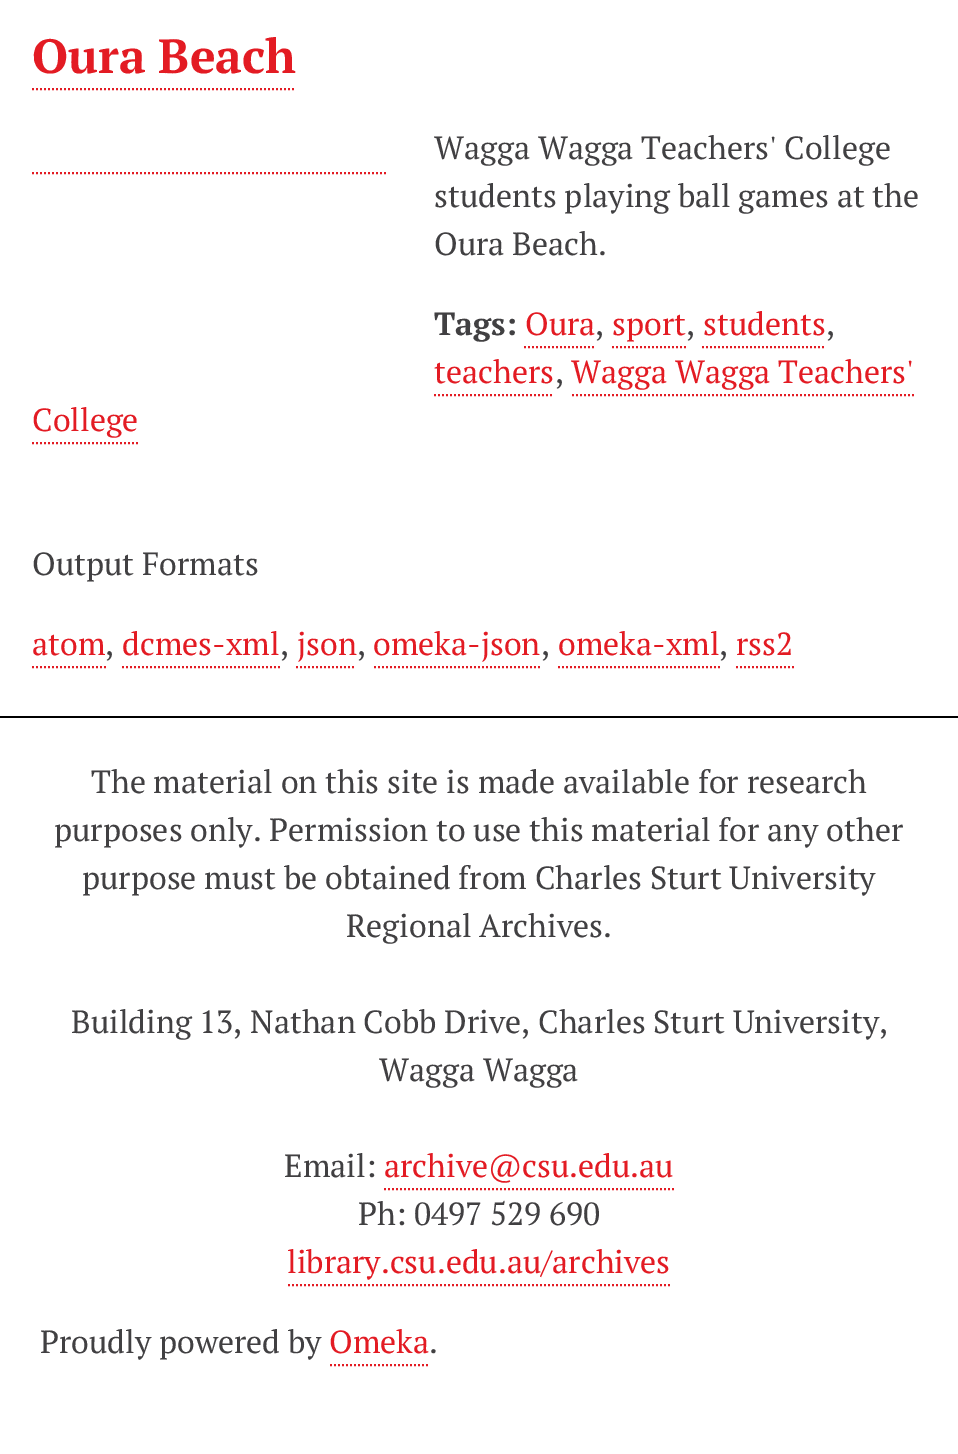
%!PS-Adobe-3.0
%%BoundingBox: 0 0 958 1454
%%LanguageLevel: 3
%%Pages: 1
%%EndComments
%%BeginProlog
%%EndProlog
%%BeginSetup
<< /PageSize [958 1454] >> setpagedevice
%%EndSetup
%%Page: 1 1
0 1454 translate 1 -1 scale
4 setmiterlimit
1 setgray
0 0 958 1454 rectfill
0.89 0.106 0.137 setrgbcolor
2 setlinewidth
[2 2] 0 setdash
newpath 32 89 moveto 296 89 lineto stroke
newpath 32 173 moveto 386 173 lineto stroke
newpath 524 347 moveto 596 347 lineto stroke
newpath 612 347 moveto 686 347 lineto stroke
newpath 702 347 moveto 826 347 lineto stroke
newpath 434 395 moveto 554 395 lineto stroke
newpath 572 395 moveto 914 395 lineto stroke
newpath 32 443 moveto 138 443 lineto stroke
newpath 32 667 moveto 106 667 lineto stroke
newpath 122 667 moveto 280 667 lineto stroke
newpath 296 667 moveto 356 667 lineto stroke
newpath 374 667 moveto 540 667 lineto stroke
newpath 558 667 moveto 720 667 lineto stroke
newpath 736 667 moveto 794 667 lineto stroke
0 setgray
0 716 958 2 rectfill
0.89 0.106 0.137 setrgbcolor
newpath 384 1189 moveto 674 1189 lineto stroke
newpath 288 1285 moveto 670 1285 lineto stroke
newpath 330 1365 moveto 430 1365 lineto stroke
/PTSerif-Bold [48 0 0 -48 0 0] selectfont
32 73 moveto (Oura Beach) show
/PTSerif-Regular [32 0 0 -32 0 0] selectfont
0.255 0.251 0.259 setrgbcolor
434 159 moveto (Wagga Wagga Teachers' College) show
434 207 moveto (students playing ball games at the) show
434 255 moveto (Oura Beach.) show
/PTSerif-Bold [32 0 0 -32 0 0] selectfont
434 335 moveto (Tags:) show
/PTSerif-Regular [32 0 0 -32 0 0] selectfont
0.89 0.106 0.137 setrgbcolor
525 335 moveto (Oura) show
0.255 0.251 0.259 setrgbcolor
595 335 moveto (,) show
0.89 0.106 0.137 setrgbcolor
612 335 moveto (sport) show
0.255 0.251 0.259 setrgbcolor
686 335 moveto (,) show
0.89 0.106 0.137 setrgbcolor
703 335 moveto (students) show
0.255 0.251 0.259 setrgbcolor
826 335 moveto (,) show
0.89 0.106 0.137 setrgbcolor
434 383 moveto (teachers) show
0.255 0.251 0.259 setrgbcolor
555 383 moveto (,) show
0.89 0.106 0.137 setrgbcolor
571 383 moveto (Wagga Wagga Teachers') show
32 431 moveto (College) show
0.255 0.251 0.259 setrgbcolor
32 575 moveto (Output Formats) show
0.89 0.106 0.137 setrgbcolor
32 655 moveto (atom) show
0.255 0.251 0.259 setrgbcolor
105 655 moveto (,) show
0.89 0.106 0.137 setrgbcolor
122 655 moveto (dcmes-xml) show
0.255 0.251 0.259 setrgbcolor
280 655 moveto (,) show
0.89 0.106 0.137 setrgbcolor
297 655 moveto (json) show
0.255 0.251 0.259 setrgbcolor
357 655 moveto (,) show
0.89 0.106 0.137 setrgbcolor
373 655 moveto (omeka-json) show
0.255 0.251 0.259 setrgbcolor
541 655 moveto (,) show
0.89 0.106 0.137 setrgbcolor
558 655 moveto (omeka-xml) show
0.255 0.251 0.259 setrgbcolor
719 655 moveto (,) show
0.89 0.106 0.137 setrgbcolor
736 655 moveto (rss2) show
0.255 0.251 0.259 setrgbcolor
91 793 moveto (The material on this site is made available for research) show
54 841 moveto (purposes only. Permission to use this material for any other) show
82 889 moveto (purpose must be obtained from Charles Sturt University) show
346 937 moveto (Regional Archives.) show
71 1033 moveto (Building 13, Nathan Cobb Drive, Charles Sturt University,) show
379 1081 moveto (Wagga Wagga) show
284 1177 moveto (Email:) show
0.89 0.106 0.137 setrgbcolor
384 1177 moveto (archive@csu.edu.au) show
0.255 0.251 0.259 setrgbcolor
358 1225 moveto (Ph: 0497 529 690) show
0.89 0.106 0.137 setrgbcolor
287 1273 moveto (library.csu.edu.au/archives) show
0.255 0.251 0.259 setrgbcolor
40 1353 moveto (Proudly powered by) show
0.89 0.106 0.137 setrgbcolor
329 1353 moveto (Omeka) show
0.255 0.251 0.259 setrgbcolor
429 1353 moveto (.) show
showpage
%%EOF
